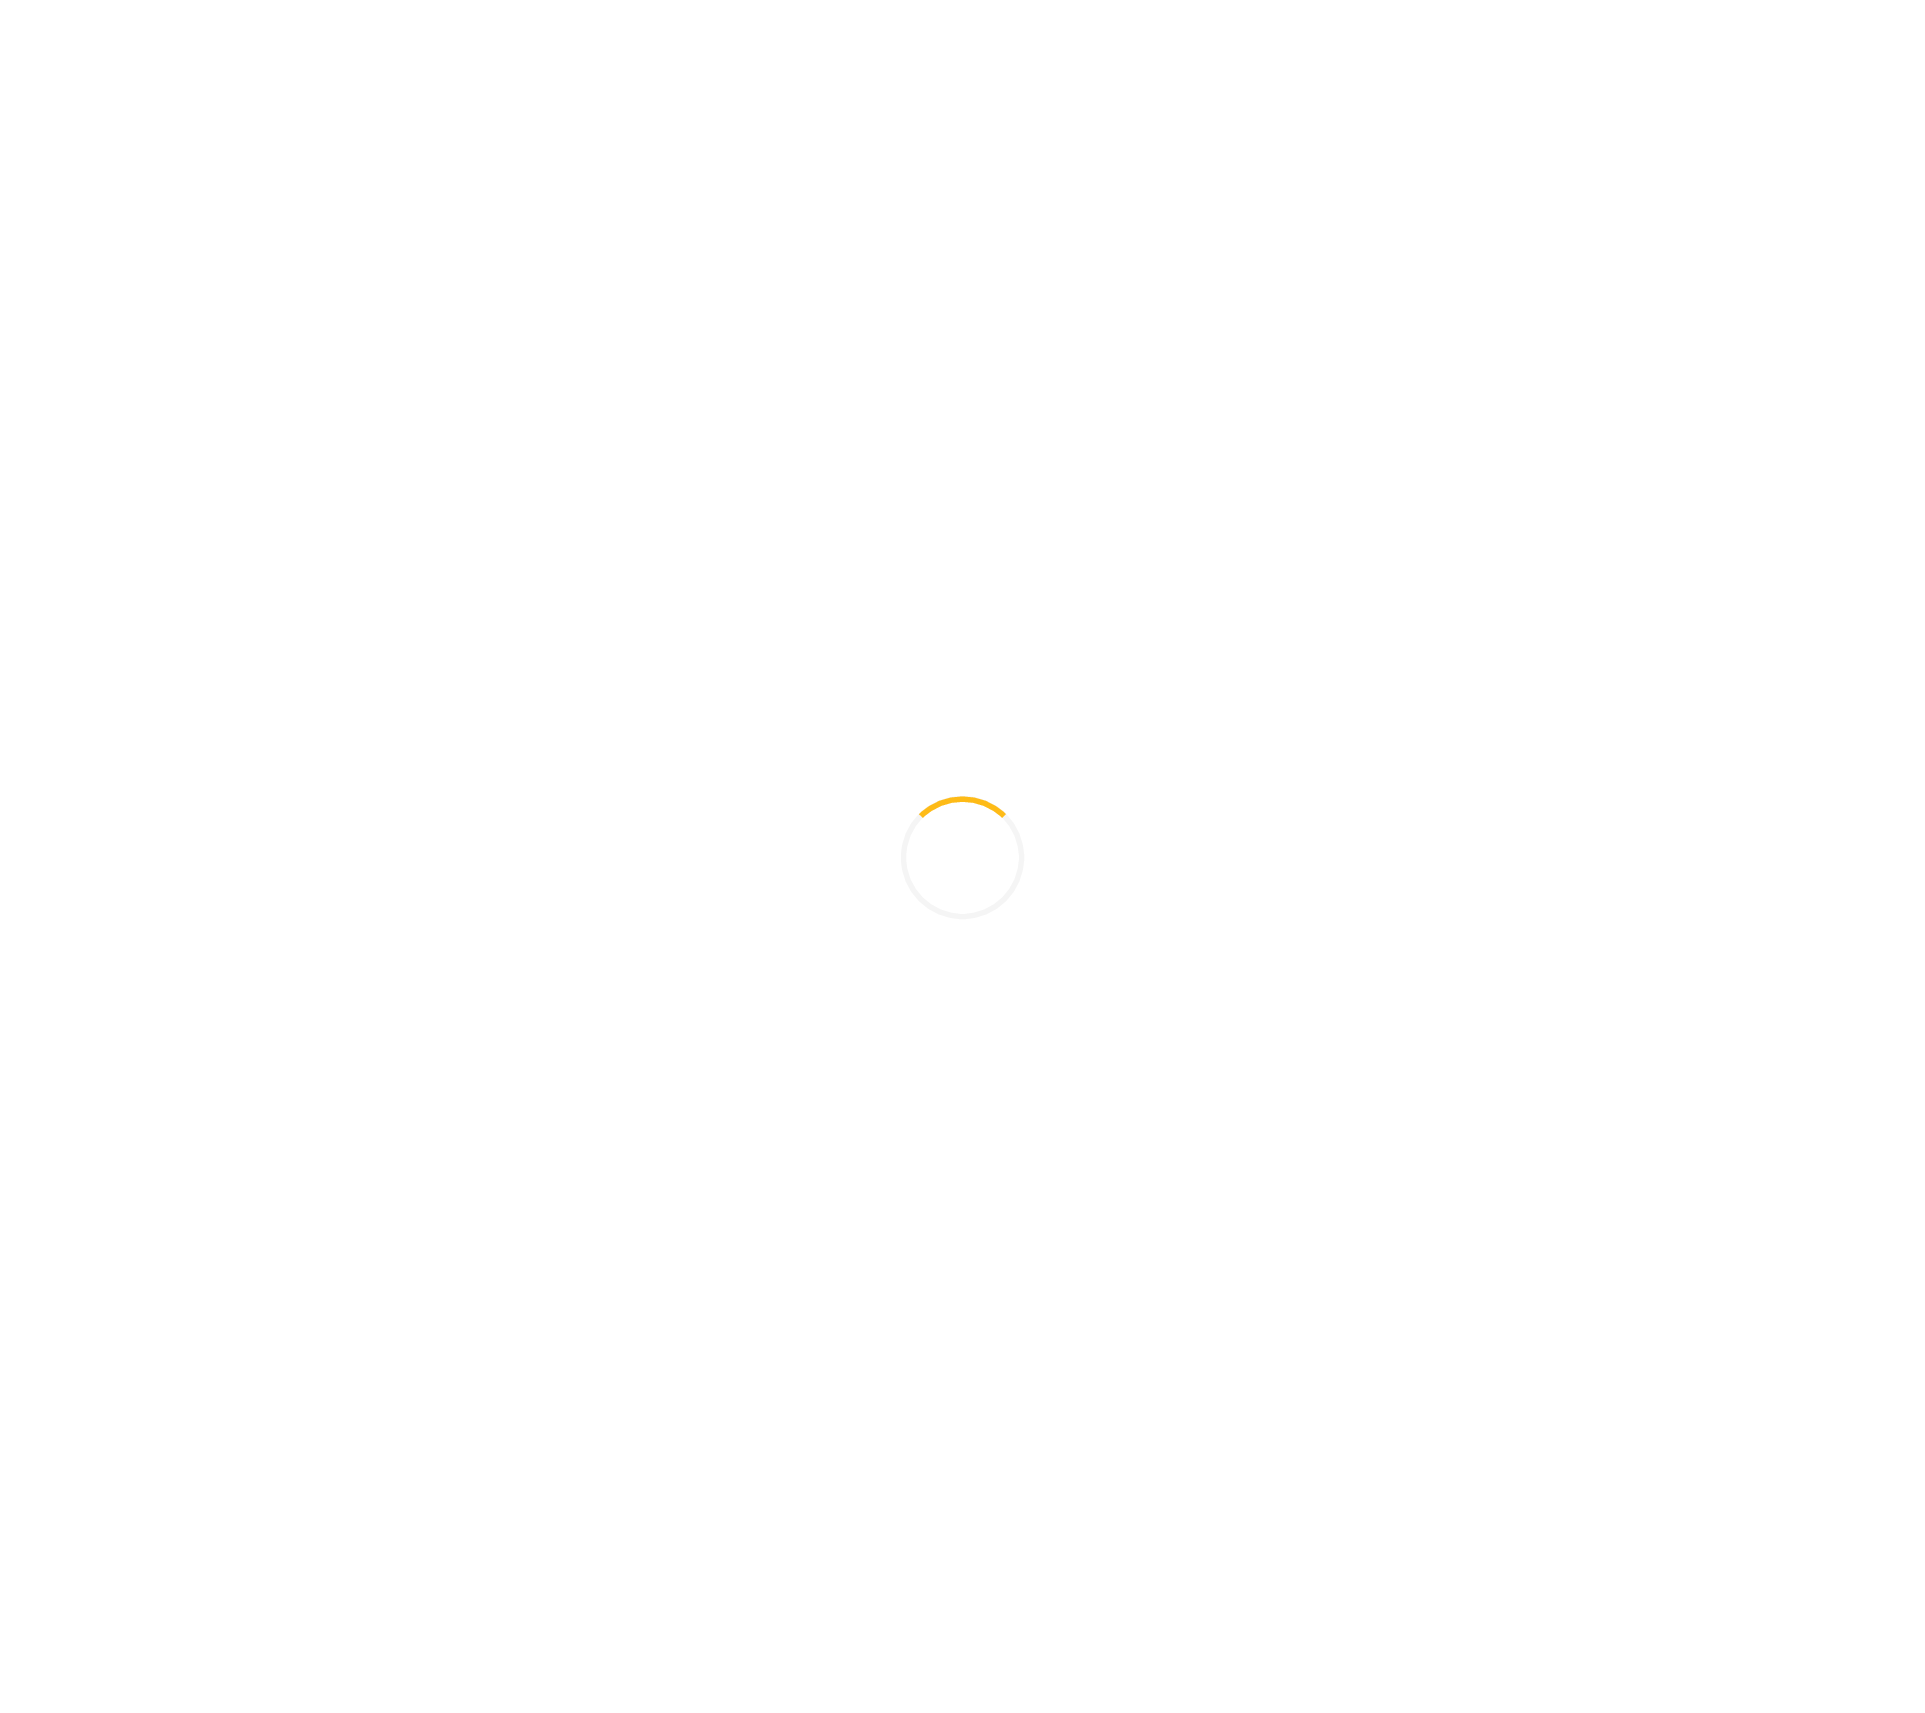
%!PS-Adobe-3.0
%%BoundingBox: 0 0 1925 1713
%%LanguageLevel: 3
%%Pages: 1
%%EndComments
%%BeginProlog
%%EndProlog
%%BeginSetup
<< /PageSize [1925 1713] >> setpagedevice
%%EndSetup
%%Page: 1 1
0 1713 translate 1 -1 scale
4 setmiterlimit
1 setgray
0 0 1925 1713 rectfill
0.961 setgray
5 setlinewidth
newpath 962.5 857.5 59 0 360 arc closepath stroke
0.996 0.733 0.09 setrgbcolor
5.2 setlinewidth
newpath 921 816 moveto 943.5 793.5 981.5 793.5 1004 816 curveto stroke
showpage
%%EOF
